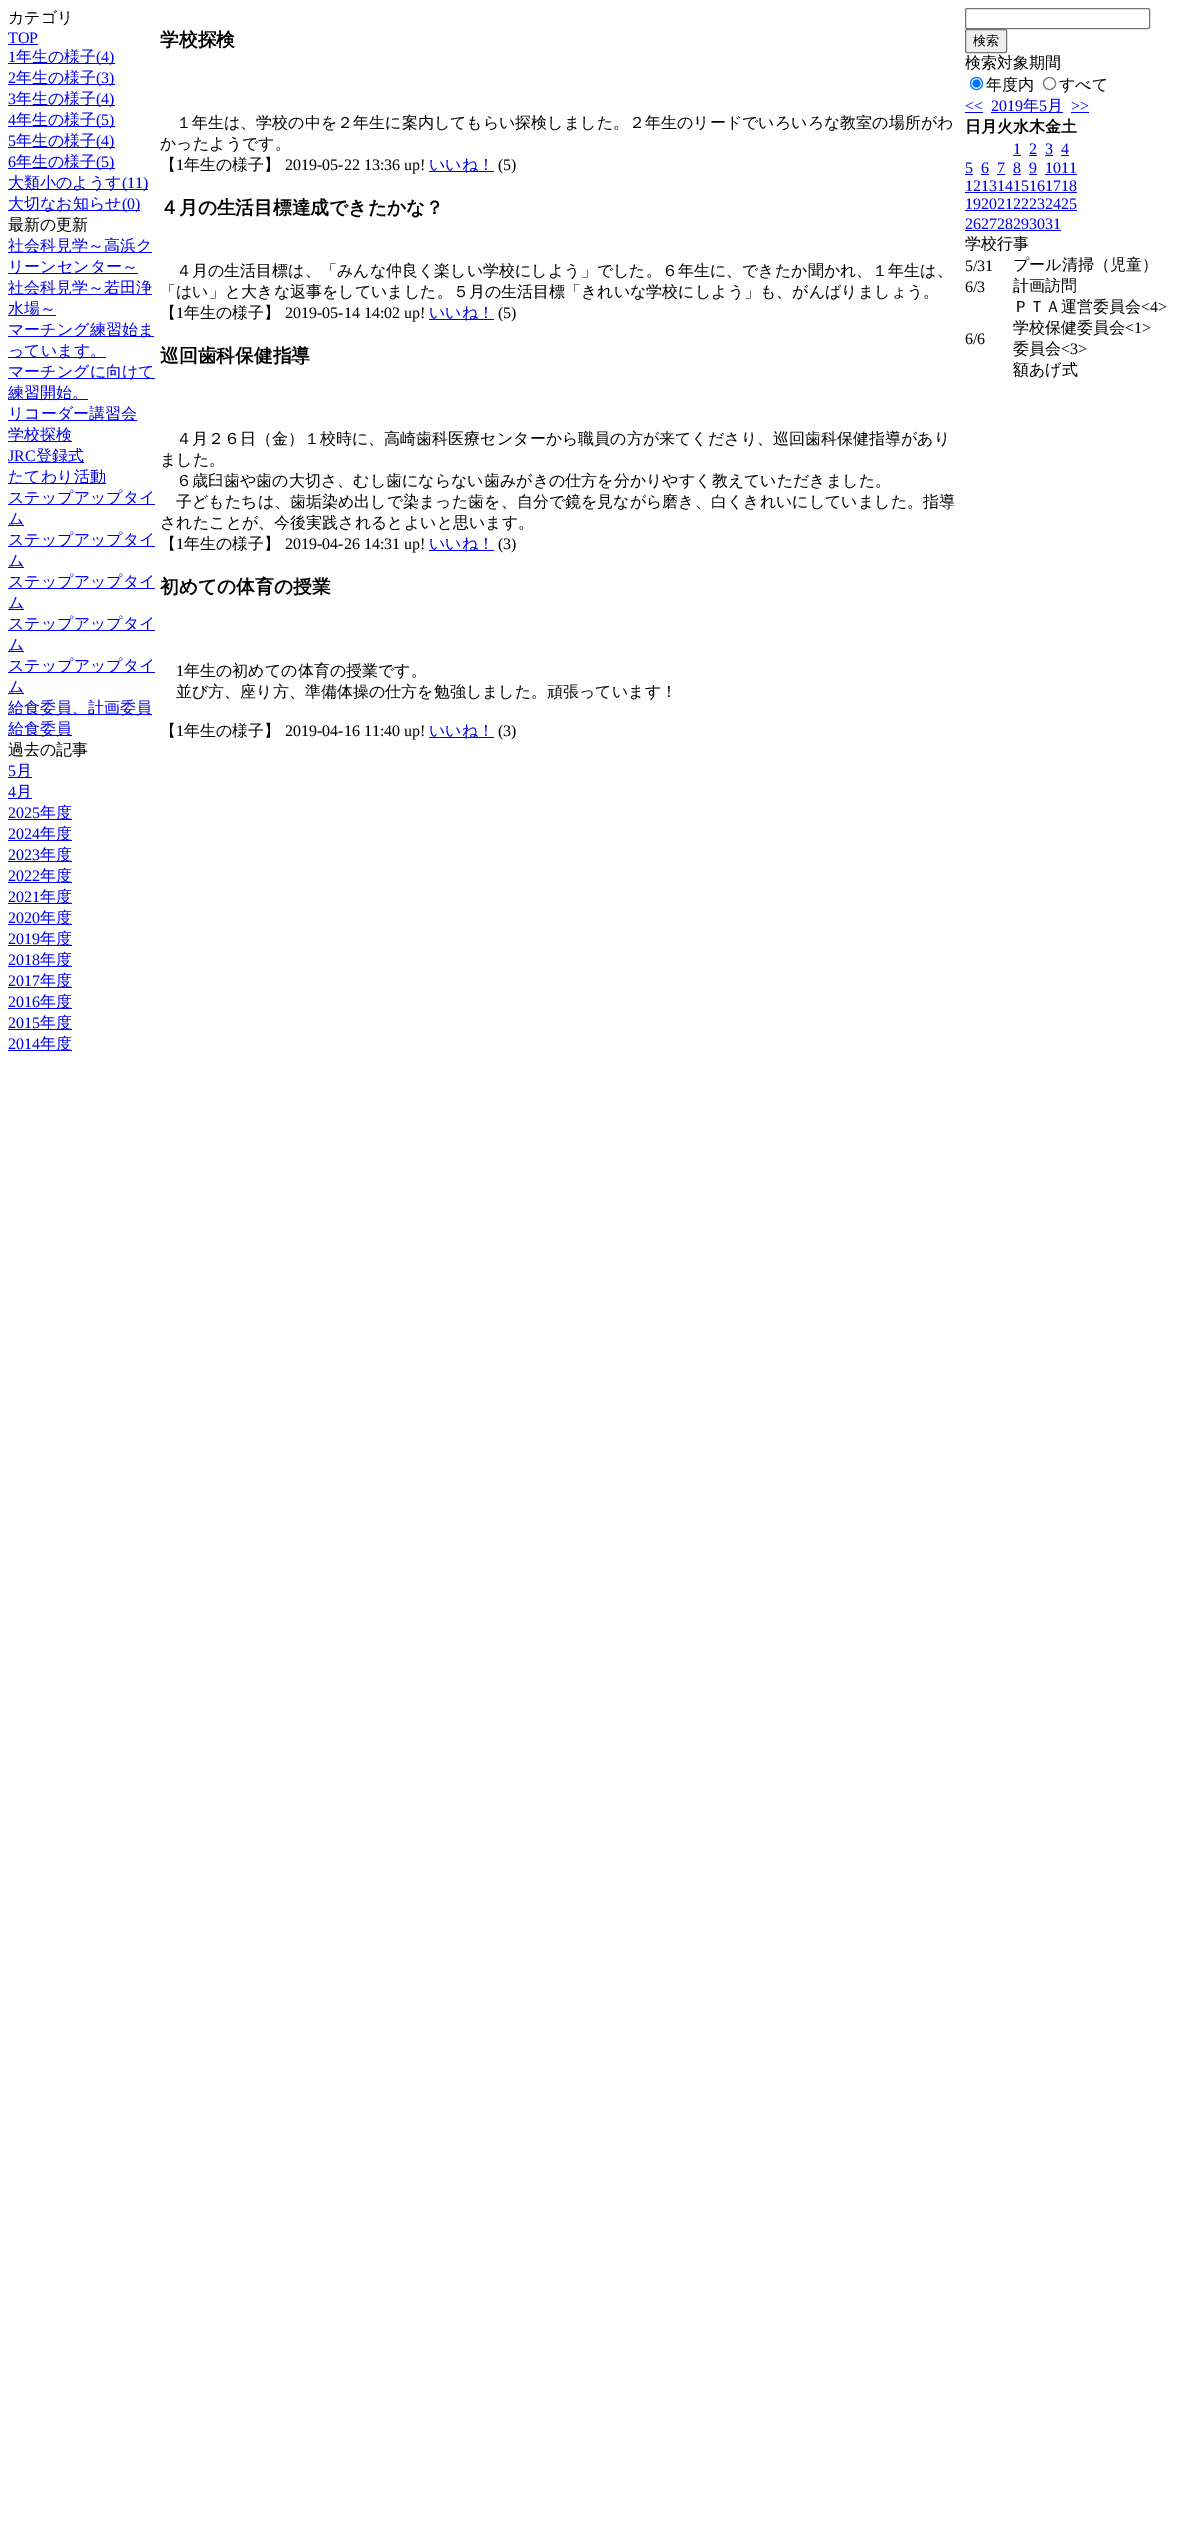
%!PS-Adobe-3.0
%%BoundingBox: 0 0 1181 2536
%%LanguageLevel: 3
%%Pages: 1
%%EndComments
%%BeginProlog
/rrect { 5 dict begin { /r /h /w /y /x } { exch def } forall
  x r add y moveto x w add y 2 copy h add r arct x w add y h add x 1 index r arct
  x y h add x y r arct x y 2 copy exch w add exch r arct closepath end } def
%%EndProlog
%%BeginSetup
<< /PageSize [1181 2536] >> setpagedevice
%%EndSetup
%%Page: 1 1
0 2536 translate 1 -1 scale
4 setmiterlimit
1 setgray
0 0 1181 2536 rectfill
0 0 0.933 setrgbcolor
8 44 30 1 rectfill
8 63 107 1 rectfill
8 84 107 1 rectfill
8 105 107 1 rectfill
8 126 107 1 rectfill
8 147 107 1 rectfill
8 168 107 1 rectfill
8 189 140 1 rectfill
8 210 132 1 rectfill
8 252 144 1 rectfill
8 273 130 1 rectfill
8 294 144 1 rectfill
8 315 48 1 rectfill
8 336 146 1 rectfill
8 357 98 1 rectfill
8 378 147 1 rectfill
8 399 80 1 rectfill
8 420 129 1 rectfill
8 441 64 1 rectfill
8 462 76 1 rectfill
8 483 98 1 rectfill
8 504 147 1 rectfill
8 525 16 1 rectfill
8 546 147 1 rectfill
8 567 16 1 rectfill
8 588 147 1 rectfill
8 609 16 1 rectfill
8 630 147 1 rectfill
8 651 16 1 rectfill
8 672 147 1 rectfill
8 693 16 1 rectfill
8 714 144 1 rectfill
8 735 64 1 rectfill
8 777 24 1 rectfill
8 798 24 1 rectfill
8 819 64 1 rectfill
8 840 64 1 rectfill
8 861 64 1 rectfill
8 882 64 1 rectfill
8 903 64 1 rectfill
8 924 64 1 rectfill
8 945 64 1 rectfill
8 966 64 1 rectfill
8 987 64 1 rectfill
8 1008 64 1 rectfill
8 1029 64 1 rectfill
8 1050 64 1 rectfill
429 171 65 1 rectfill
429 319 65 1 rectfill
429 550 65 1 rectfill
429 737 65 1 rectfill
0.463 setgray
965.5 8.5 184 20 1.5 rrect stroke
0.937 setgray
965.5 29.5 41 23 1.5 rrect gsave fill grestore
0.463 setgray
stroke
0 0.459 1 setrgbcolor
newpath 976.5 83.5 6 0 360 arc closepath stroke
newpath 976.5 83.5 4 0 360 arc closepath fill
0.463 setgray
newpath 1049.5 83.5 6 0 360 arc closepath stroke
0 0 0.933 setrgbcolor
965 112 18 1 rectfill
991 112 72 1 rectfill
1071 112 18 1 rectfill
1013 155 8 1 rectfill
1029 155 8 1 rectfill
1045 155 8 1 rectfill
1061 155 8 1 rectfill
965 174 8 1 rectfill
981 174 8 1 rectfill
997 174 8 1 rectfill
1013 174 8 1 rectfill
1029 174 8 1 rectfill
1045 174 32 1 rectfill
965 192 112 1 rectfill
965 210 112 1 rectfill
965 230 96 1 rectfill
/WenQuanYiZenHei-Medium [16 0 0 -16 0 0] selectfont
0 setgray
8 23 moveto (カテゴリ) show
/LiberationSerif-Regular [16 0 0 -16 0 0] selectfont
0 0 0.933 setrgbcolor
8 43 moveto (TOP) show
8 62 moveto (1) show
/WenQuanYiZenHei-Medium [16 0 0 -16 0 0] selectfont
16 62 moveto (年生の様子) show
/LiberationSerif-Regular [16 0 0 -16 0 0] selectfont
96 62 moveto (\(4\)) show
8 83 moveto (2) show
/WenQuanYiZenHei-Medium [16 0 0 -16 0 0] selectfont
16 83 moveto (年生の様子) show
/LiberationSerif-Regular [16 0 0 -16 0 0] selectfont
96 83 moveto (\(3\)) show
8 104 moveto (3) show
/WenQuanYiZenHei-Medium [16 0 0 -16 0 0] selectfont
16 104 moveto (年生の様子) show
/LiberationSerif-Regular [16 0 0 -16 0 0] selectfont
96 104 moveto (\(4\)) show
8 125 moveto (4) show
/WenQuanYiZenHei-Medium [16 0 0 -16 0 0] selectfont
16 125 moveto (年生の様子) show
/LiberationSerif-Regular [16 0 0 -16 0 0] selectfont
96 125 moveto (\(5\)) show
8 146 moveto (5) show
/WenQuanYiZenHei-Medium [16 0 0 -16 0 0] selectfont
16 146 moveto (年生の様子) show
/LiberationSerif-Regular [16 0 0 -16 0 0] selectfont
96 146 moveto (\(4\)) show
8 167 moveto (6) show
/WenQuanYiZenHei-Medium [16 0 0 -16 0 0] selectfont
16 167 moveto (年生の様子) show
/LiberationSerif-Regular [16 0 0 -16 0 0] selectfont
96 167 moveto (\(5\)) show
/WenQuanYiZenHei-Medium [16 0 0 -16 0 0] selectfont
8 188 moveto (大類小のようす) show
/LiberationSerif-Regular [16 0 0 -16 0 0] selectfont
122 188 moveto (\(11\)) show
/WenQuanYiZenHei-Medium [16 0 0 -16 0 0] selectfont
8 209 moveto (大切なお知らせ) show
/LiberationSerif-Regular [16 0 0 -16 0 0] selectfont
122 209 moveto (\(0\)) show
/WenQuanYiZenHei-Medium [16 0 0 -16 0 0] selectfont
0 setgray
8 230 moveto (最新の更新) show
0 0 0.933 setrgbcolor
8 251 moveto (社会科見学～高浜ク) show
8 272 moveto (リーンセンター～) show
8 293 moveto (社会科見学～若田浄) show
8 314 moveto (水場～) show
8 335 moveto (マーチング練習始ま) show
8 356 moveto (っています。) show
8 377 moveto (マーチングに向けて) show
8 398 moveto (練習開始。) show
8 419 moveto (リコーダー講習会) show
8 440 moveto (学校探検) show
/LiberationSerif-Regular [16 0 0 -16 0 0] selectfont
8 461 moveto (JRC) show
/WenQuanYiZenHei-Medium [16 0 0 -16 0 0] selectfont
36 461 moveto (登録式) show
8 482 moveto (たてわり活動) show
8 503 moveto (ステップアップタイ) show
8 524 moveto (ム) show
8 545 moveto (ステップアップタイ) show
8 566 moveto (ム) show
8 587 moveto (ステップアップタイ) show
8 608 moveto (ム) show
8 629 moveto (ステップアップタイ) show
8 650 moveto (ム) show
8 671 moveto (ステップアップタイ) show
8 692 moveto (ム) show
8 713 moveto (給食委員、計画委員) show
8 734 moveto (給食委員) show
0 setgray
8 755 moveto (過去の記事) show
/LiberationSerif-Regular [16 0 0 -16 0 0] selectfont
0 0 0.933 setrgbcolor
8 776 moveto (5) show
/WenQuanYiZenHei-Medium [16 0 0 -16 0 0] selectfont
16 776 moveto (月) show
/LiberationSerif-Regular [16 0 0 -16 0 0] selectfont
8 797 moveto (4) show
/WenQuanYiZenHei-Medium [16 0 0 -16 0 0] selectfont
16 797 moveto (月) show
/LiberationSerif-Regular [16 0 0 -16 0 0] selectfont
8 818 moveto (2025) show
/WenQuanYiZenHei-Medium [16 0 0 -16 0 0] selectfont
40 818 moveto (年度) show
/LiberationSerif-Regular [16 0 0 -16 0 0] selectfont
8 839 moveto (2024) show
/WenQuanYiZenHei-Medium [16 0 0 -16 0 0] selectfont
40 839 moveto (年度) show
/LiberationSerif-Regular [16 0 0 -16 0 0] selectfont
8 860 moveto (2023) show
/WenQuanYiZenHei-Medium [16 0 0 -16 0 0] selectfont
40 860 moveto (年度) show
/LiberationSerif-Regular [16 0 0 -16 0 0] selectfont
8 881 moveto (2022) show
/WenQuanYiZenHei-Medium [16 0 0 -16 0 0] selectfont
40 881 moveto (年度) show
/LiberationSerif-Regular [16 0 0 -16 0 0] selectfont
8 902 moveto (2021) show
/WenQuanYiZenHei-Medium [16 0 0 -16 0 0] selectfont
40 902 moveto (年度) show
/LiberationSerif-Regular [16 0 0 -16 0 0] selectfont
8 923 moveto (2020) show
/WenQuanYiZenHei-Medium [16 0 0 -16 0 0] selectfont
40 923 moveto (年度) show
/LiberationSerif-Regular [16 0 0 -16 0 0] selectfont
8 944 moveto (2019) show
/WenQuanYiZenHei-Medium [16 0 0 -16 0 0] selectfont
40 944 moveto (年度) show
/LiberationSerif-Regular [16 0 0 -16 0 0] selectfont
8 965 moveto (2018) show
/WenQuanYiZenHei-Medium [16 0 0 -16 0 0] selectfont
40 965 moveto (年度) show
/LiberationSerif-Regular [16 0 0 -16 0 0] selectfont
8 986 moveto (2017) show
/WenQuanYiZenHei-Medium [16 0 0 -16 0 0] selectfont
40 986 moveto (年度) show
/LiberationSerif-Regular [16 0 0 -16 0 0] selectfont
8 1007 moveto (2016) show
/WenQuanYiZenHei-Medium [16 0 0 -16 0 0] selectfont
40 1007 moveto (年度) show
/LiberationSerif-Regular [16 0 0 -16 0 0] selectfont
8 1028 moveto (2015) show
/WenQuanYiZenHei-Medium [16 0 0 -16 0 0] selectfont
40 1028 moveto (年度) show
/LiberationSerif-Regular [16 0 0 -16 0 0] selectfont
8 1049 moveto (2014) show
/WenQuanYiZenHei-Medium [16 0 0 -16 0 0] selectfont
40 1049 moveto (年度) show
/WenQuanYiZenHei-Bold [18.75 0 0 -18.75 0 0] selectfont
0 setgray
160 46 moveto (学校探検) show
/WenQuanYiZenHei-Medium [16 0 0 -16 0 0] selectfont
176 128 moveto (１年生は、学校の中を２年生に案内してもらい探検しました。２年生のリードでいろいろな教室の場所がわ) show
160 149 moveto (かったようです。) show
160 170 moveto (【) show
/LiberationSerif-Regular [16 0 0 -16 0 0] selectfont
176 170 moveto (1) show
/WenQuanYiZenHei-Medium [16 0 0 -16 0 0] selectfont
184 170 moveto (年生の様子】) show
/LiberationSerif-Regular [16 0 0 -16 0 0] selectfont
285 170 moveto (2019-05-22 13:36 up!) show
/WenQuanYiZenHei-Medium [16 0 0 -16 0 0] selectfont
0 0 0.933 setrgbcolor
429 170 moveto (いいね！) show
/LiberationSerif-Regular [16 0 0 -16 0 0] selectfont
0 setgray
498 170 moveto (\(5\)) show
/WenQuanYiZenHei-Bold [18.75 0 0 -18.75 0 0] selectfont
160 214 moveto (４月の生活目標達成できたかな？) show
/WenQuanYiZenHei-Medium [16 0 0 -16 0 0] selectfont
176 276 moveto (４月の生活目標は、「みんな仲良く楽しい学校にしよう」でした。６年生に、できたか聞かれ、１年生は、) show
160 297 moveto (「はい」と大きな返事をしていました。５月の生活目標「きれいな学校にしよう」も、がんばりましょう。) show
160 318 moveto (【) show
/LiberationSerif-Regular [16 0 0 -16 0 0] selectfont
176 318 moveto (1) show
/WenQuanYiZenHei-Medium [16 0 0 -16 0 0] selectfont
184 318 moveto (年生の様子】) show
/LiberationSerif-Regular [16 0 0 -16 0 0] selectfont
285 318 moveto (2019-05-14 14:02 up!) show
/WenQuanYiZenHei-Medium [16 0 0 -16 0 0] selectfont
0 0 0.933 setrgbcolor
429 318 moveto (いいね！) show
/LiberationSerif-Regular [16 0 0 -16 0 0] selectfont
0 setgray
498 318 moveto (\(5\)) show
/WenQuanYiZenHei-Bold [18.75 0 0 -18.75 0 0] selectfont
160 362 moveto (巡回歯科保健指導) show
/WenQuanYiZenHei-Medium [16 0 0 -16 0 0] selectfont
176 444 moveto (４月２６日（金）１校時に、高崎歯科医療センターから職員の方が来てくださり、巡回歯科保健指導があり) show
160 465 moveto (ました。) show
176 486 moveto (６歳臼歯や歯の大切さ、むし歯にならない歯みがきの仕方を分かりやすく教えていただきました。) show
176 507 moveto (子どもたちは、歯垢染め出しで染まった歯を、自分で鏡を見ながら磨き、白くきれいにしていました。指導) show
160 528 moveto (されたことが、今後実践されるとよいと思います。) show
160 549 moveto (【) show
/LiberationSerif-Regular [16 0 0 -16 0 0] selectfont
176 549 moveto (1) show
/WenQuanYiZenHei-Medium [16 0 0 -16 0 0] selectfont
184 549 moveto (年生の様子】) show
/LiberationSerif-Regular [16 0 0 -16 0 0] selectfont
285 549 moveto (2019-04-26 14:31 up!) show
/WenQuanYiZenHei-Medium [16 0 0 -16 0 0] selectfont
0 0 0.933 setrgbcolor
429 549 moveto (いいね！) show
/LiberationSerif-Regular [16 0 0 -16 0 0] selectfont
0 setgray
498 549 moveto (\(3\)) show
/WenQuanYiZenHei-Bold [18.75 0 0 -18.75 0 0] selectfont
160 593 moveto (初めての体育の授業) show
/LiberationSerif-Regular [16 0 0 -16 0 0] selectfont
176 676 moveto (1) show
/WenQuanYiZenHei-Medium [16 0 0 -16 0 0] selectfont
184 676 moveto (年生の初めての体育の授業です。) show
176 697 moveto (並び方、座り方、準備体操の仕方を勉強しました。頑張っています！) show
160 736 moveto (【) show
/LiberationSerif-Regular [16 0 0 -16 0 0] selectfont
176 736 moveto (1) show
/WenQuanYiZenHei-Medium [16 0 0 -16 0 0] selectfont
184 736 moveto (年生の様子】) show
/LiberationSerif-Regular [16 0 0 -16 0 0] selectfont
285 736 moveto (2019-04-16 11:40 up!) show
/WenQuanYiZenHei-Medium [16 0 0 -16 0 0] selectfont
0 0 0.933 setrgbcolor
429 736 moveto (いいね！) show
/LiberationSerif-Regular [16 0 0 -16 0 0] selectfont
0 setgray
498 736 moveto (\(3\)) show
/WenQuanYiZenHei-Medium [13 0 0 -13 0 0] selectfont
973 45 moveto (検索) show
/WenQuanYiZenHei-Medium [16 0 0 -16 0 0] selectfont
965 68 moveto (検索対象期間) show
986 90 moveto (年度内) show
1059 90 moveto (すべて) show
/LiberationSerif-Regular [16 0 0 -16 0 0] selectfont
0 0 0.933 setrgbcolor
965 111 moveto (<<) show
991 111 moveto (2019) show
/WenQuanYiZenHei-Medium [16 0 0 -16 0 0] selectfont
1023 111 moveto (年) show
/LiberationSerif-Regular [16 0 0 -16 0 0] selectfont
1039 111 moveto (5) show
/WenQuanYiZenHei-Medium [16 0 0 -16 0 0] selectfont
1047 111 moveto (月) show
/LiberationSerif-Regular [16 0 0 -16 0 0] selectfont
1071 111 moveto (>>) show
/WenQuanYiZenHei-Bold [16 0 0 -16 0 0] selectfont
0 setgray
965 132 moveto (日月火水木金土) show
/LiberationSerif-Regular [16 0 0 -16 0 0] selectfont
0 0 0.933 setrgbcolor
1013 154 moveto (1) show
1029 154 moveto (2) show
1045 154 moveto (3) show
1061 154 moveto (4) show
965 173 moveto (5) show
981 173 moveto (6) show
997 173 moveto (7) show
1013 173 moveto (8) show
1029 173 moveto (9) show
1045 173 moveto (1011) show
965 191 moveto (12131415161718) show
965 209 moveto (19202122232425) show
965 229 moveto (262728293031) show
/WenQuanYiZenHei-Medium [16 0 0 -16 0 0] selectfont
0 setgray
965 249 moveto (学校行事) show
/LiberationSerif-Regular [16 0 0 -16 0 0] selectfont
965 271 moveto (5/31) show
/WenQuanYiZenHei-Medium [16 0 0 -16 0 0] selectfont
1013 270 moveto (プール清掃（児童）) show
/LiberationSerif-Regular [16 0 0 -16 0 0] selectfont
965 292 moveto (6/3) show
/WenQuanYiZenHei-Medium [16 0 0 -16 0 0] selectfont
1013 291 moveto (計画訪問) show
1013 312 moveto (ＰＴＡ運営委員会) show
/LiberationSerif-Regular [16 0 0 -16 0 0] selectfont
1141 312 moveto (<4>) show
965 344 moveto (6/6) show
/WenQuanYiZenHei-Medium [16 0 0 -16 0 0] selectfont
1013 333 moveto (学校保健委員会) show
/LiberationSerif-Regular [16 0 0 -16 0 0] selectfont
1125 333 moveto (<1>) show
/WenQuanYiZenHei-Medium [16 0 0 -16 0 0] selectfont
1013 354 moveto (委員会) show
/LiberationSerif-Regular [16 0 0 -16 0 0] selectfont
1061 354 moveto (<3>) show
/WenQuanYiZenHei-Medium [16 0 0 -16 0 0] selectfont
1013 375 moveto (額あげ式) show
showpage
%%EOF
